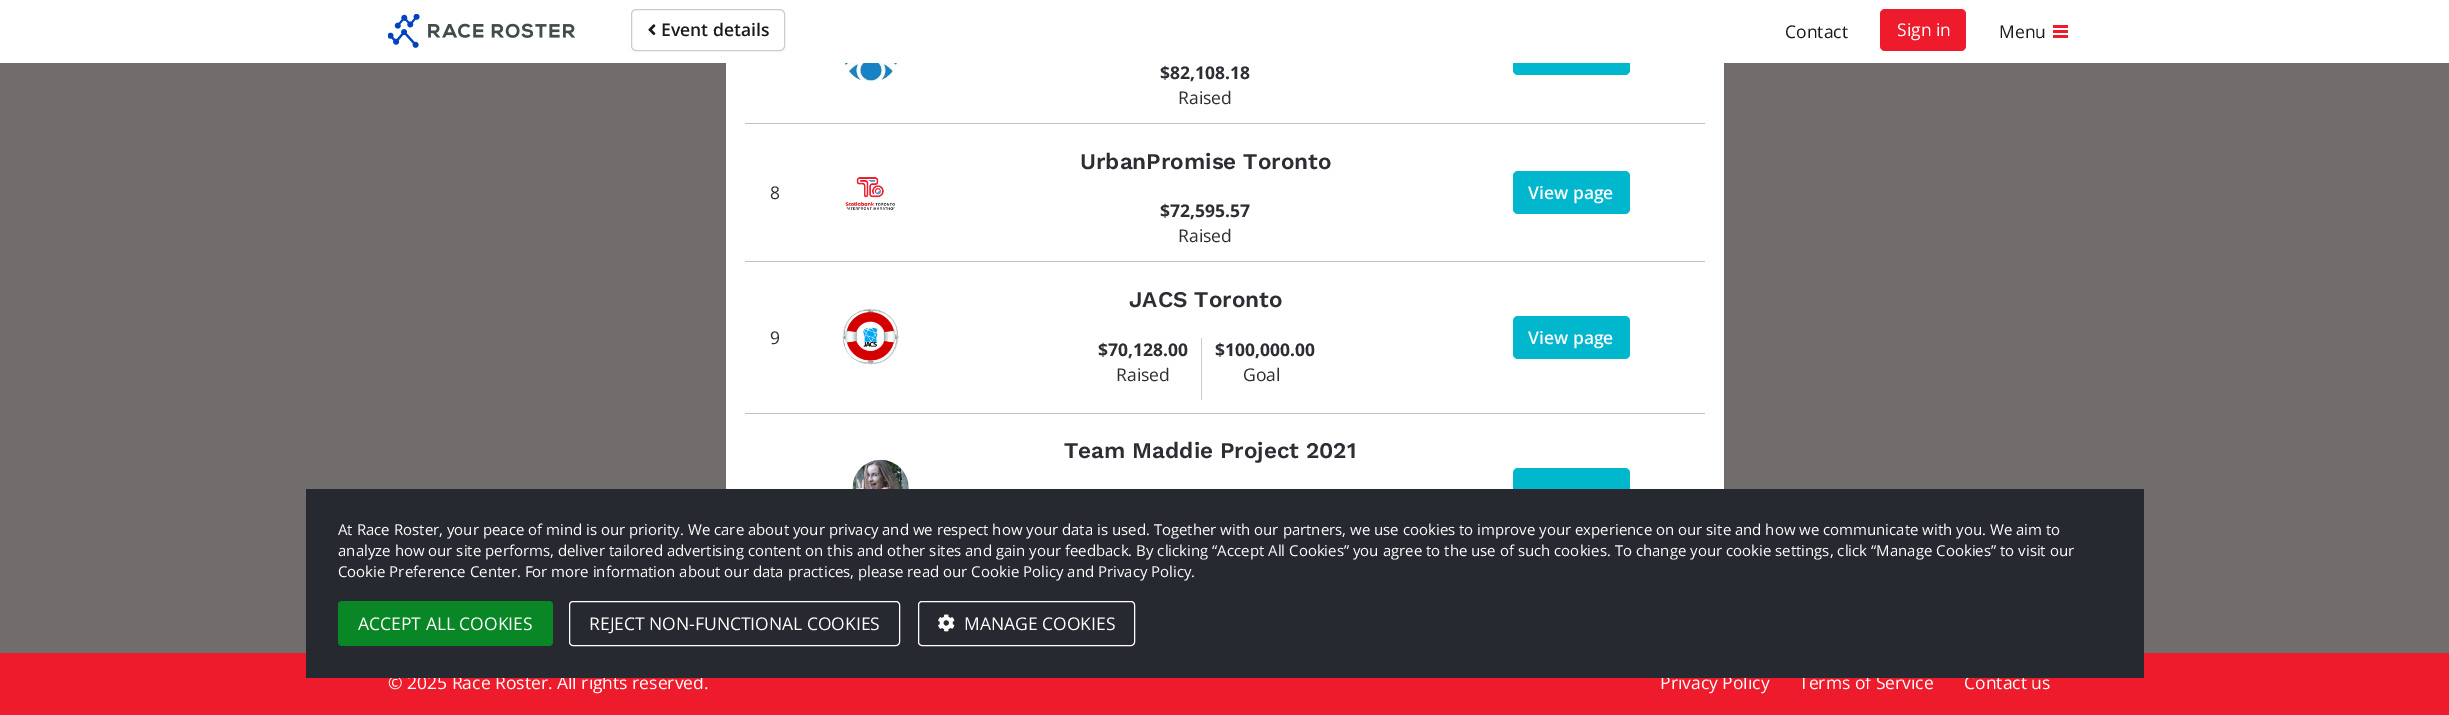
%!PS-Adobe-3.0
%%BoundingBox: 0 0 2449 715
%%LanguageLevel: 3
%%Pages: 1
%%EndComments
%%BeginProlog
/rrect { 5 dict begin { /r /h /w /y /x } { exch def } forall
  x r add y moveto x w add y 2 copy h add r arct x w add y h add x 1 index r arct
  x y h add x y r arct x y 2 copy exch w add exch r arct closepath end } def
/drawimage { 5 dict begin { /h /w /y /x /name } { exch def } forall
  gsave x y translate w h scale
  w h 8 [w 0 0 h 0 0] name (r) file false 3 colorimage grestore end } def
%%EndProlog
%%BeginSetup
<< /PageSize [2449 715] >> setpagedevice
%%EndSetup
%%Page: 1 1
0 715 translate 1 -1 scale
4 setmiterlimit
0.447 0.427 0.427 setrgbcolor
0 0 2449 715 rectfill
1 setgray
726 63 998 426 rectfill
0 0.718 0.804 setrgbcolor
1513 33 117 42 5 rrect fill
1 setgray
0 0 2449 63 rectfill
(images/1.raw) 388 14 187 34 drawimage
0.8 setgray
631.5 9.5 153 41 4.5 rrect stroke
(images/2.raw) 648 24 8 12 drawimage
0.933 0.106 0.176 setrgbcolor
1880 9 86 42 5 rrect fill
2053 25 15 3 rectfill
2053 30 15 3 rectfill
2053 35 15 3 rectfill
0.753 0.753 0.8 setrgbcolor
745 123 960 1 rectfill
(images/3.raw) 844 63 54 19 drawimage
745 261 960 1 rectfill
(images/4.raw) 845 177 50 34 drawimage
0 0.718 0.804 setrgbcolor
1513 171 117 43 5 rrect fill
0.753 0.753 0.8 setrgbcolor
745 413 960 1 rectfill
(images/5.raw) 842 308 57 57 drawimage
0.8 setgray
1201 338 1 62 rectfill
0 0.718 0.804 setrgbcolor
1513 316 117 43 5 rrect fill
(images/6.raw) 852 459 57 30 drawimage
1513 468 117 42 5 rrect fill
0.933 0.106 0.176 setrgbcolor
0 653 2449 62 rectfill
/OpenSans-SemiBold [17.5 0 0 -17.5 0 0] selectfont
0.102 setgray
661 36 moveto (Event details) show
/OpenSans-Regular [17.5 0 0 -17.5 0 0] selectfont
1785 38 moveto (Contact) show
1 setgray
1897 36 moveto (Sign in) show
0.102 setgray
1999 38 moveto (Menu) show
/OpenSans-Bold [17.5 0 0 -17.5 0 0] selectfont
0.176 0.176 0.2 setrgbcolor
1160 79 moveto ($82,108.18) show
/OpenSans-Regular [17.5 0 0 -17.5 0 0] selectfont
1178 104 moveto (Raised) show
770 199 moveto (8) show
/WorkSans-SemiBold [22.5 0 0 -22.5 0 0] selectfont
1080 169 moveto (UrbanPromise Toronto) show
/OpenSans-Bold [17.5 0 0 -17.5 0 0] selectfont
1160 217 moveto ($72,595.57) show
/OpenSans-Regular [17.5 0 0 -17.5 0 0] selectfont
1178 242 moveto (Raised) show
/OpenSans-SemiBold [17.5 0 0 -17.5 0 0] selectfont
1 setgray
1528 199 moveto (View page) show
/OpenSans-Regular [17.5 0 0 -17.5 0 0] selectfont
0.176 0.176 0.2 setrgbcolor
770 344 moveto (9) show
/WorkSans-SemiBold [22.5 0 0 -22.5 0 0] selectfont
1129 307 moveto (JACS Toronto) show
/OpenSans-Bold [17.5 0 0 -17.5 0 0] selectfont
1098 356 moveto ($70,128.00) show
/OpenSans-Regular [17.5 0 0 -17.5 0 0] selectfont
1116 381 moveto (Raised) show
/OpenSans-Bold [17.5 0 0 -17.5 0 0] selectfont
1215 356 moveto ($100,000.00) show
/OpenSans-Regular [17.5 0 0 -17.5 0 0] selectfont
1243 381 moveto (Goal) show
/OpenSans-SemiBold [17.5 0 0 -17.5 0 0] selectfont
1 setgray
1528 344 moveto (View page) show
/WorkSans-SemiBold [22.5 0 0 -22.5 0 0] selectfont
0.176 0.176 0.2 setrgbcolor
1064 458 moveto (Team Maddie Project 2021) show
/OpenSans-Regular [17.5 0 0 -17.5 0 0] selectfont
1 setgray
388 689 moveto (© 2025 Race Roster. All rights reserved.) show
1660 689 moveto (Privacy Policy) show
1799 689 moveto (Terms of Service) show
1964 689 moveto (Contact us) show
0.153 0.161 0.188 setrgbcolor
306 489 1838 189 rectfill
/OpenSans-Regular [15 0 0 -15 0 0] selectfont
1 setgray
338 535 moveto (At Race Roster, your peace of mind is our priority. We care about your privacy and we respect how your data is used. Together with our partners, we use cookies to improve your experience on our site and how we communicate with you. We aim to) show
338 556 moveto (analyze how our site performs, deliver tailored advertising content on this and other sites and gain your feedback. By clicking “Accept All Cookies” you agree to the use of such cookies. To change your cookie settings, click “Manage Cookies” to visit our) show
338 577 moveto (Cookie Preference Center. For more information about our data practices, please read our Cookie Policy and Privacy Policy.) show
0.035 0.529 0.149 setrgbcolor
338 601 215 45 4 rrect fill
/OpenSans-Regular [17.5 0 0 -17.5 0 0] selectfont
1 setgray
358 630 moveto (ACCEPT ALL COOKIES) show
569.5 601.5 330 44 3.5 rrect stroke
589 630 moveto (REJECT NON-FUNCTIONAL COOKIES) show
918.5 601.5 216 44 3.5 rrect stroke
(images/7.raw) 938 614 17 18 drawimage
964 630 moveto (MANAGE COOKIES) show
showpage
%%EOF
